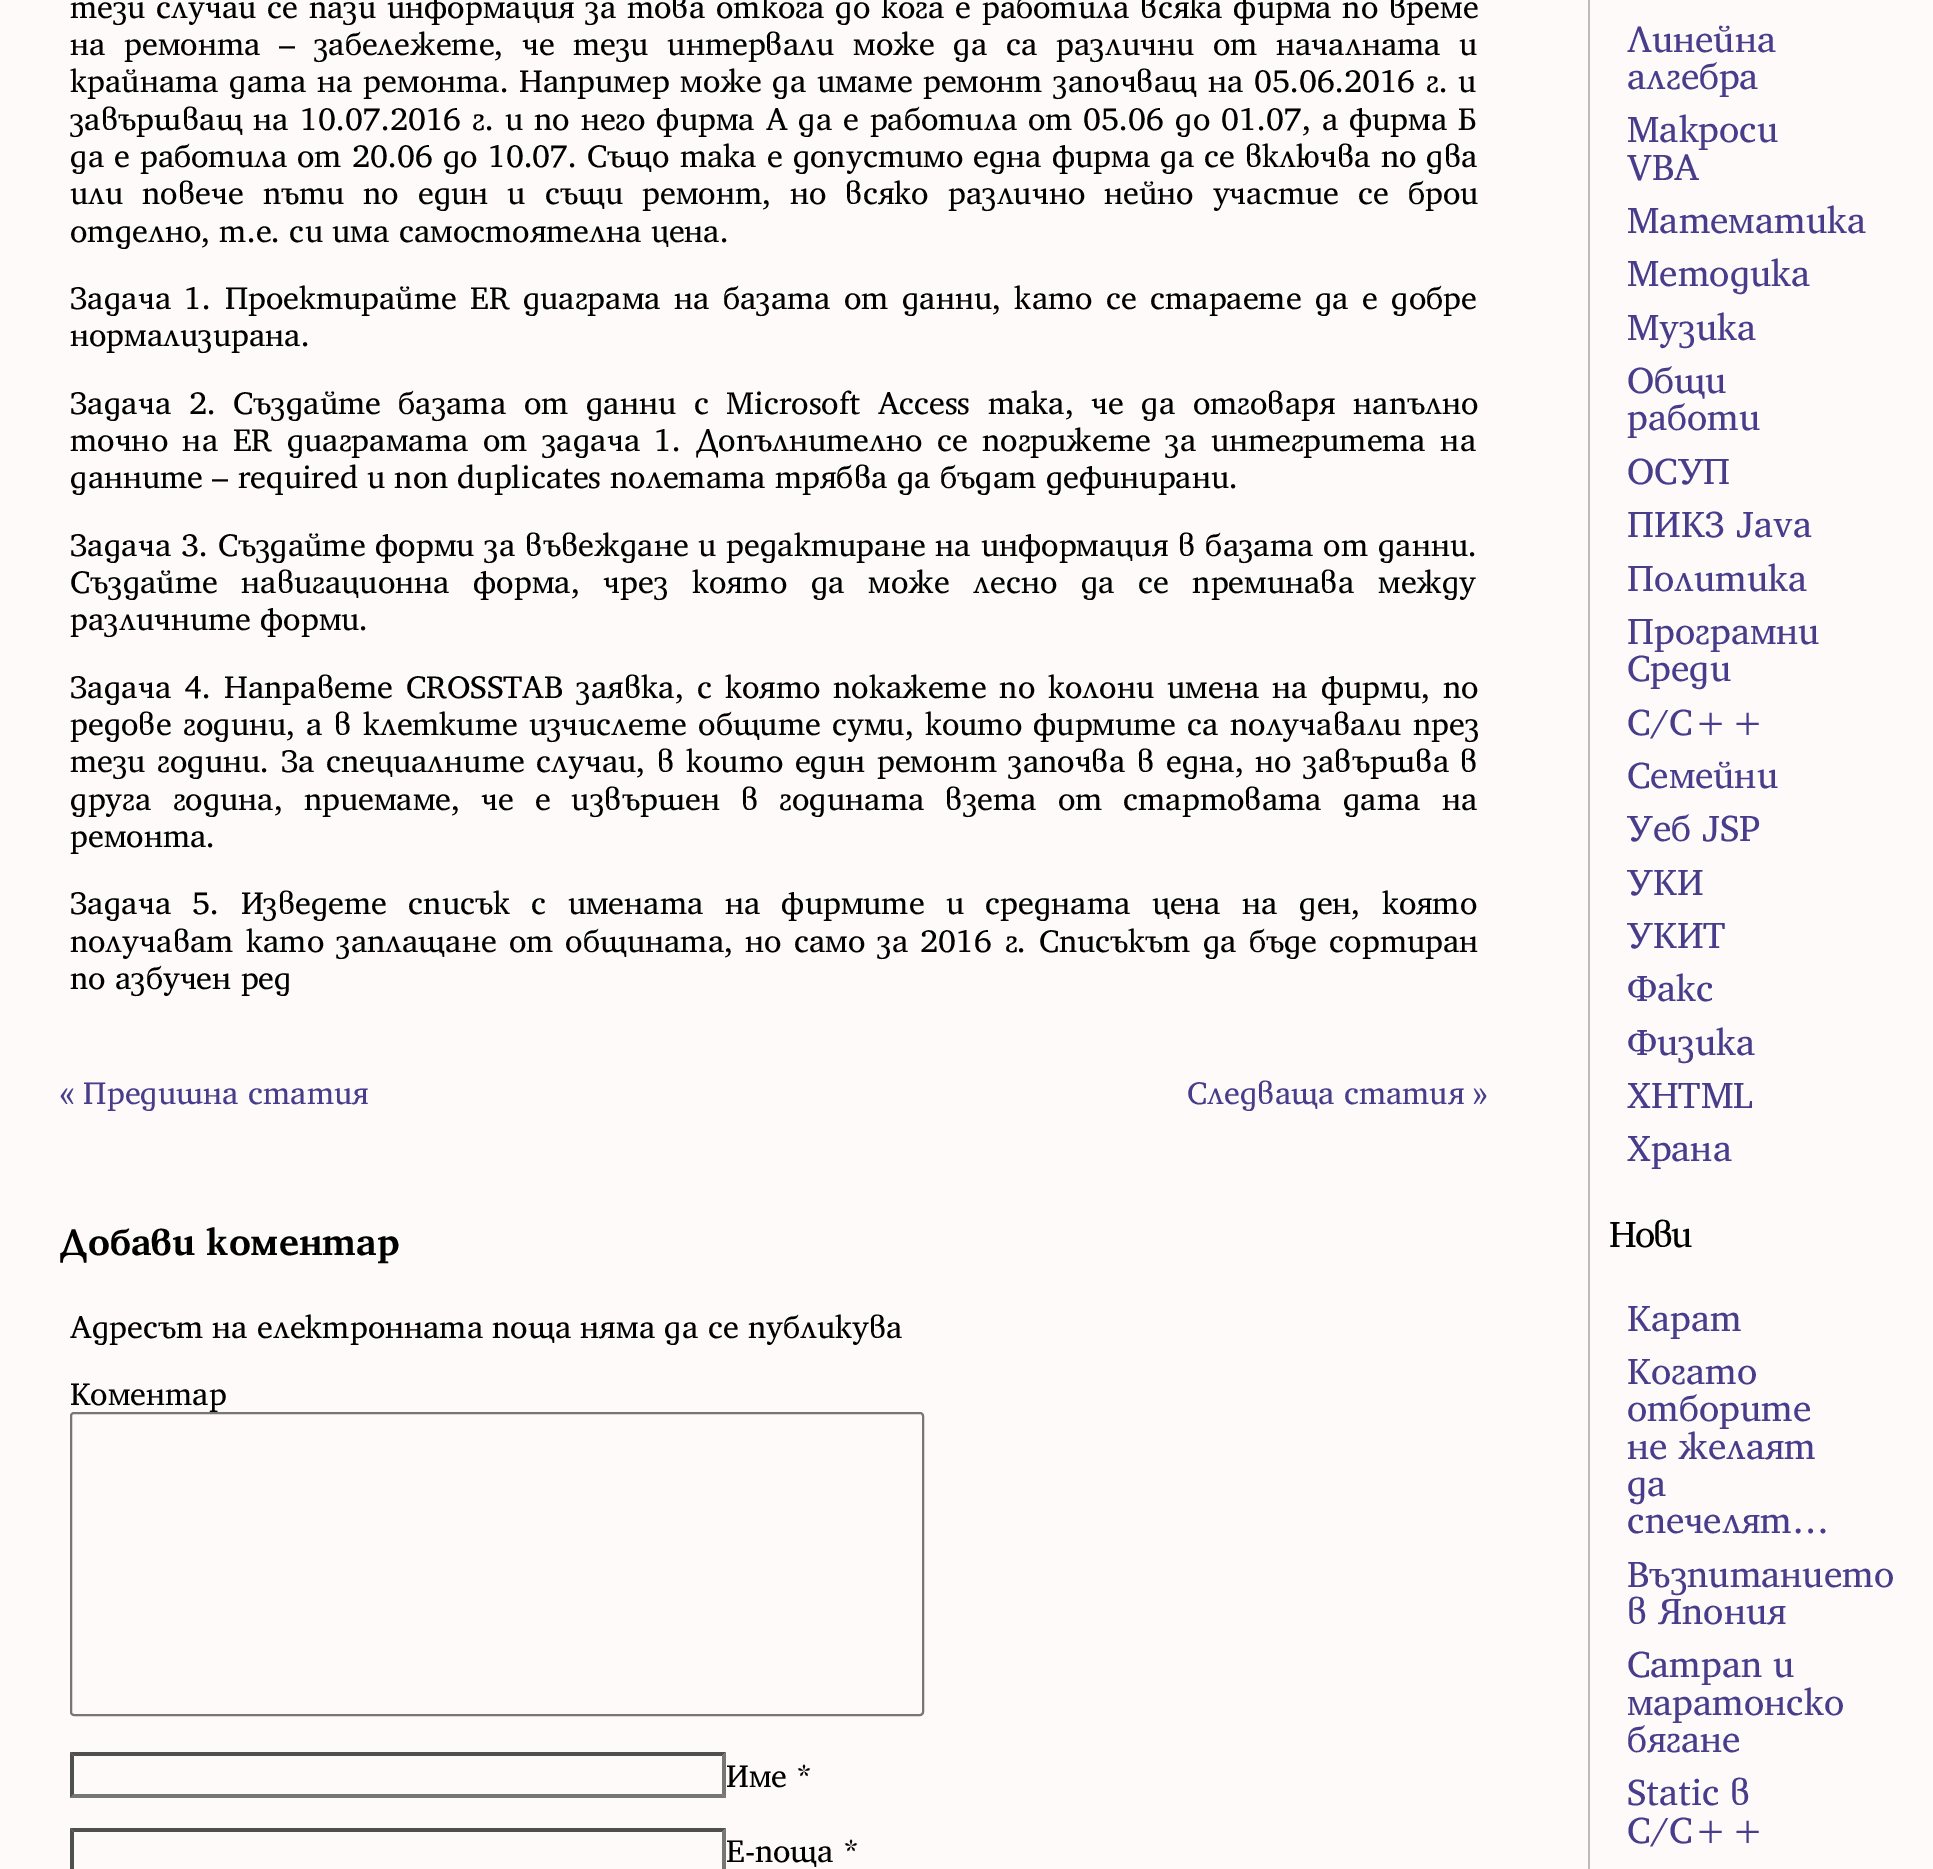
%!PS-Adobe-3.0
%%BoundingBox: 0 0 1933 1869
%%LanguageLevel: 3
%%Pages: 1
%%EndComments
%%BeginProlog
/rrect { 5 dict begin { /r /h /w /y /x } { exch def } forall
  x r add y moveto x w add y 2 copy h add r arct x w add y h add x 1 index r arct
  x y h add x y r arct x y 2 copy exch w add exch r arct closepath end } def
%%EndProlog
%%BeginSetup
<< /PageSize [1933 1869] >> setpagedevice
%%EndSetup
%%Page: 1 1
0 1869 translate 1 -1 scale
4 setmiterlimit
1 0.98 0.98 setrgbcolor
0 0 1933 1869 rectfill
0.463 setgray
2 setlinewidth
71 1413 852 302 3 rrect stroke
0.31 setgray
newpath 70 1752 moveto 726 1752 lineto 722 1756 lineto 74 1756 lineto closepath fill
0.463 setgray
newpath 726 1752 moveto 726 1798 lineto 722 1794 lineto 722 1756 lineto closepath fill
newpath 726 1798 moveto 70 1798 lineto 74 1794 lineto 722 1794 lineto closepath fill
0.31 setgray
newpath 70 1798 moveto 70 1752 lineto 74 1756 lineto 74 1794 lineto closepath fill
newpath 70 1828 moveto 726 1828 lineto 722 1832 lineto 74 1832 lineto closepath fill
0.463 setgray
newpath 726 1828 moveto 726 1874 lineto 722 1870 lineto 722 1832 lineto closepath fill
0.31 setgray
newpath 70 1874 moveto 70 1828 lineto 74 1832 lineto 74 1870 lineto closepath fill
0.733 setgray
1588 0 2 1869 rectfill
/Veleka-Regular [32 0 0 -32 0 0] selectfont
0 setgray
70 18 moveto 1.5 0 32 (тези случаи се пази информация за това откога до кога е работила всяка фирма по време) widthshow
70 55 moveto 9.4 0 32 (на ремонта – забележете, че тези интервали може да са различни от началната и) widthshow
70 92 moveto 1.25 0 32 (крайната дата на ремонта. Например може да имаме ремонт започващ на 05.06.2016 г. и) widthshow
70 130 moveto 1.6 0 32 (завършващ на 10.07.2016 г. и по него фирма А да е работила от 05.06 до 01.07, а фирма Б) widthshow
70 167 moveto 0.7 0 32 (да е работила от 20.06 до 10.07. Също така е допустимо една фирма да се включва по два) widthshow
70 204 moveto 9.75 0 32 (или повече пъти по един и същи ремонт, но всяко различно нейно участие се брои) widthshow
70 242 moveto (отделно, т.е. си има самостоятелна цена.) show
70 309 moveto 4 0 32 (Задача 1. Проектирайте ER диаграма на базата от данни, като се стараете да е добре) widthshow
70 346 moveto (нормализирана.) show
70 414 moveto 8.25 0 32 (Задача 2. Създайте базата от данни с Microsoft Access така, че да отговаря напълно) widthshow
70 451 moveto 5.25 0 32 (точно на ER диаграмата от задача 1. Допълнително се погрижете за интегритета на) widthshow
70 488 moveto (данните – required и non duplicates полетата трябва да бъдат дефинирани.) show
70 556 moveto 0.6 0 32 (Задача 3. Създайте форми за въвеждане и редактиране на информация в базата от данни.) widthshow
70 593 moveto 14.25 0 32 (Създайте навигационна форма, чрез която да може лесно да се преминава между) widthshow
70 630 moveto (различните форми.) show
70 698 moveto 3.75 0 32 (Задача 4. Направете CROSSTAB заявка, с която покажете по колони имена на фирми, по) widthshow
70 735 moveto 1.9 0 32 (редове години, а в клетките изчислете общите суми, които фирмите са получавали през) widthshow
70 772 moveto 2.25 0 32 (тези години. За специалните случаи, в които един ремонт започва в една, но завършва в) widthshow
70 810 moveto 11.75 0 32 (друга година, приемаме, че е извършен в годината взета от стартовата дата на) widthshow
70 847 moveto (ремонта.) show
70 914 moveto 12 0 32 (Задача 5. Изведете списък с имената на фирмите и средната цена на ден, която) widthshow
70 952 moveto 2.9 0 32 (получават като заплащане от общината, но само за 2016 г. Списъкът да бъде сортиран) widthshow
70 989 moveto (по азбучен ред) show
0.282 0.239 0.545 setrgbcolor
60 1104 moveto (« Предишна статия) show
1187 1104 moveto (Следваща статия ») show
/Veleka-Bold [37.5 0 0 -37.5 0 0] selectfont
0 setgray
60 1255 moveto (Добави коментар) show
/Veleka-Regular [32 0 0 -32 0 0] selectfont
70 1338 moveto (Адресът на електронната поща няма да се публикува) show
70 1405 moveto (Коментар) show
726 1787 moveto (Име *) show
726 1862 moveto (Е-поща *) show
/Veleka-Regular [37.25 0 0 -37.25 0 0] selectfont
0.282 0.239 0.545 setrgbcolor
1627 52 moveto (Линейна) show
1627 89 moveto (алгебра) show
1627 142 moveto (Макроси) show
1627 180 moveto (VBA) show
1627 233 moveto (Математика) show
1627 286 moveto (Методика) show
1627 340 moveto (Музика) show
1627 393 moveto (Общи) show
1627 430 moveto (работи) show
1627 484 moveto (ОСУП) show
1627 537 moveto (ПИК3 Java) show
1627 591 moveto (Политика) show
1627 644 moveto (Програмни) show
1627 681 moveto (Среди) show
1627 735 moveto (С/С++) show
1627 788 moveto (Семейни) show
1627 841 moveto (Уеб JSP) show
1627 895 moveto (УКИ) show
1627 948 moveto (УКИТ) show
1627 1001 moveto (Факс) show
1627 1055 moveto (Физика) show
1627 1108 moveto (ХHTML) show
1627 1161 moveto (Храна) show
0 setgray
1609 1247 moveto -2 0 (Нови) ashow
0.282 0.239 0.545 setrgbcolor
1627 1331 moveto (Карат) show
1627 1384 moveto (Когато) show
1627 1421 moveto (отборите) show
1627 1459 moveto (не желаят) show
1627 1496 moveto (да) show
1627 1533 moveto (спечелят…) show
1627 1587 moveto (Възпитанието) show
1627 1624 moveto (в Япония) show
1627 1677 moveto (Сатрап и) show
1627 1715 moveto (маратонско) show
1627 1752 moveto (бягане) show
1627 1805 moveto (Static в) show
1627 1843 moveto (C/C++) show
showpage
%%EOF
